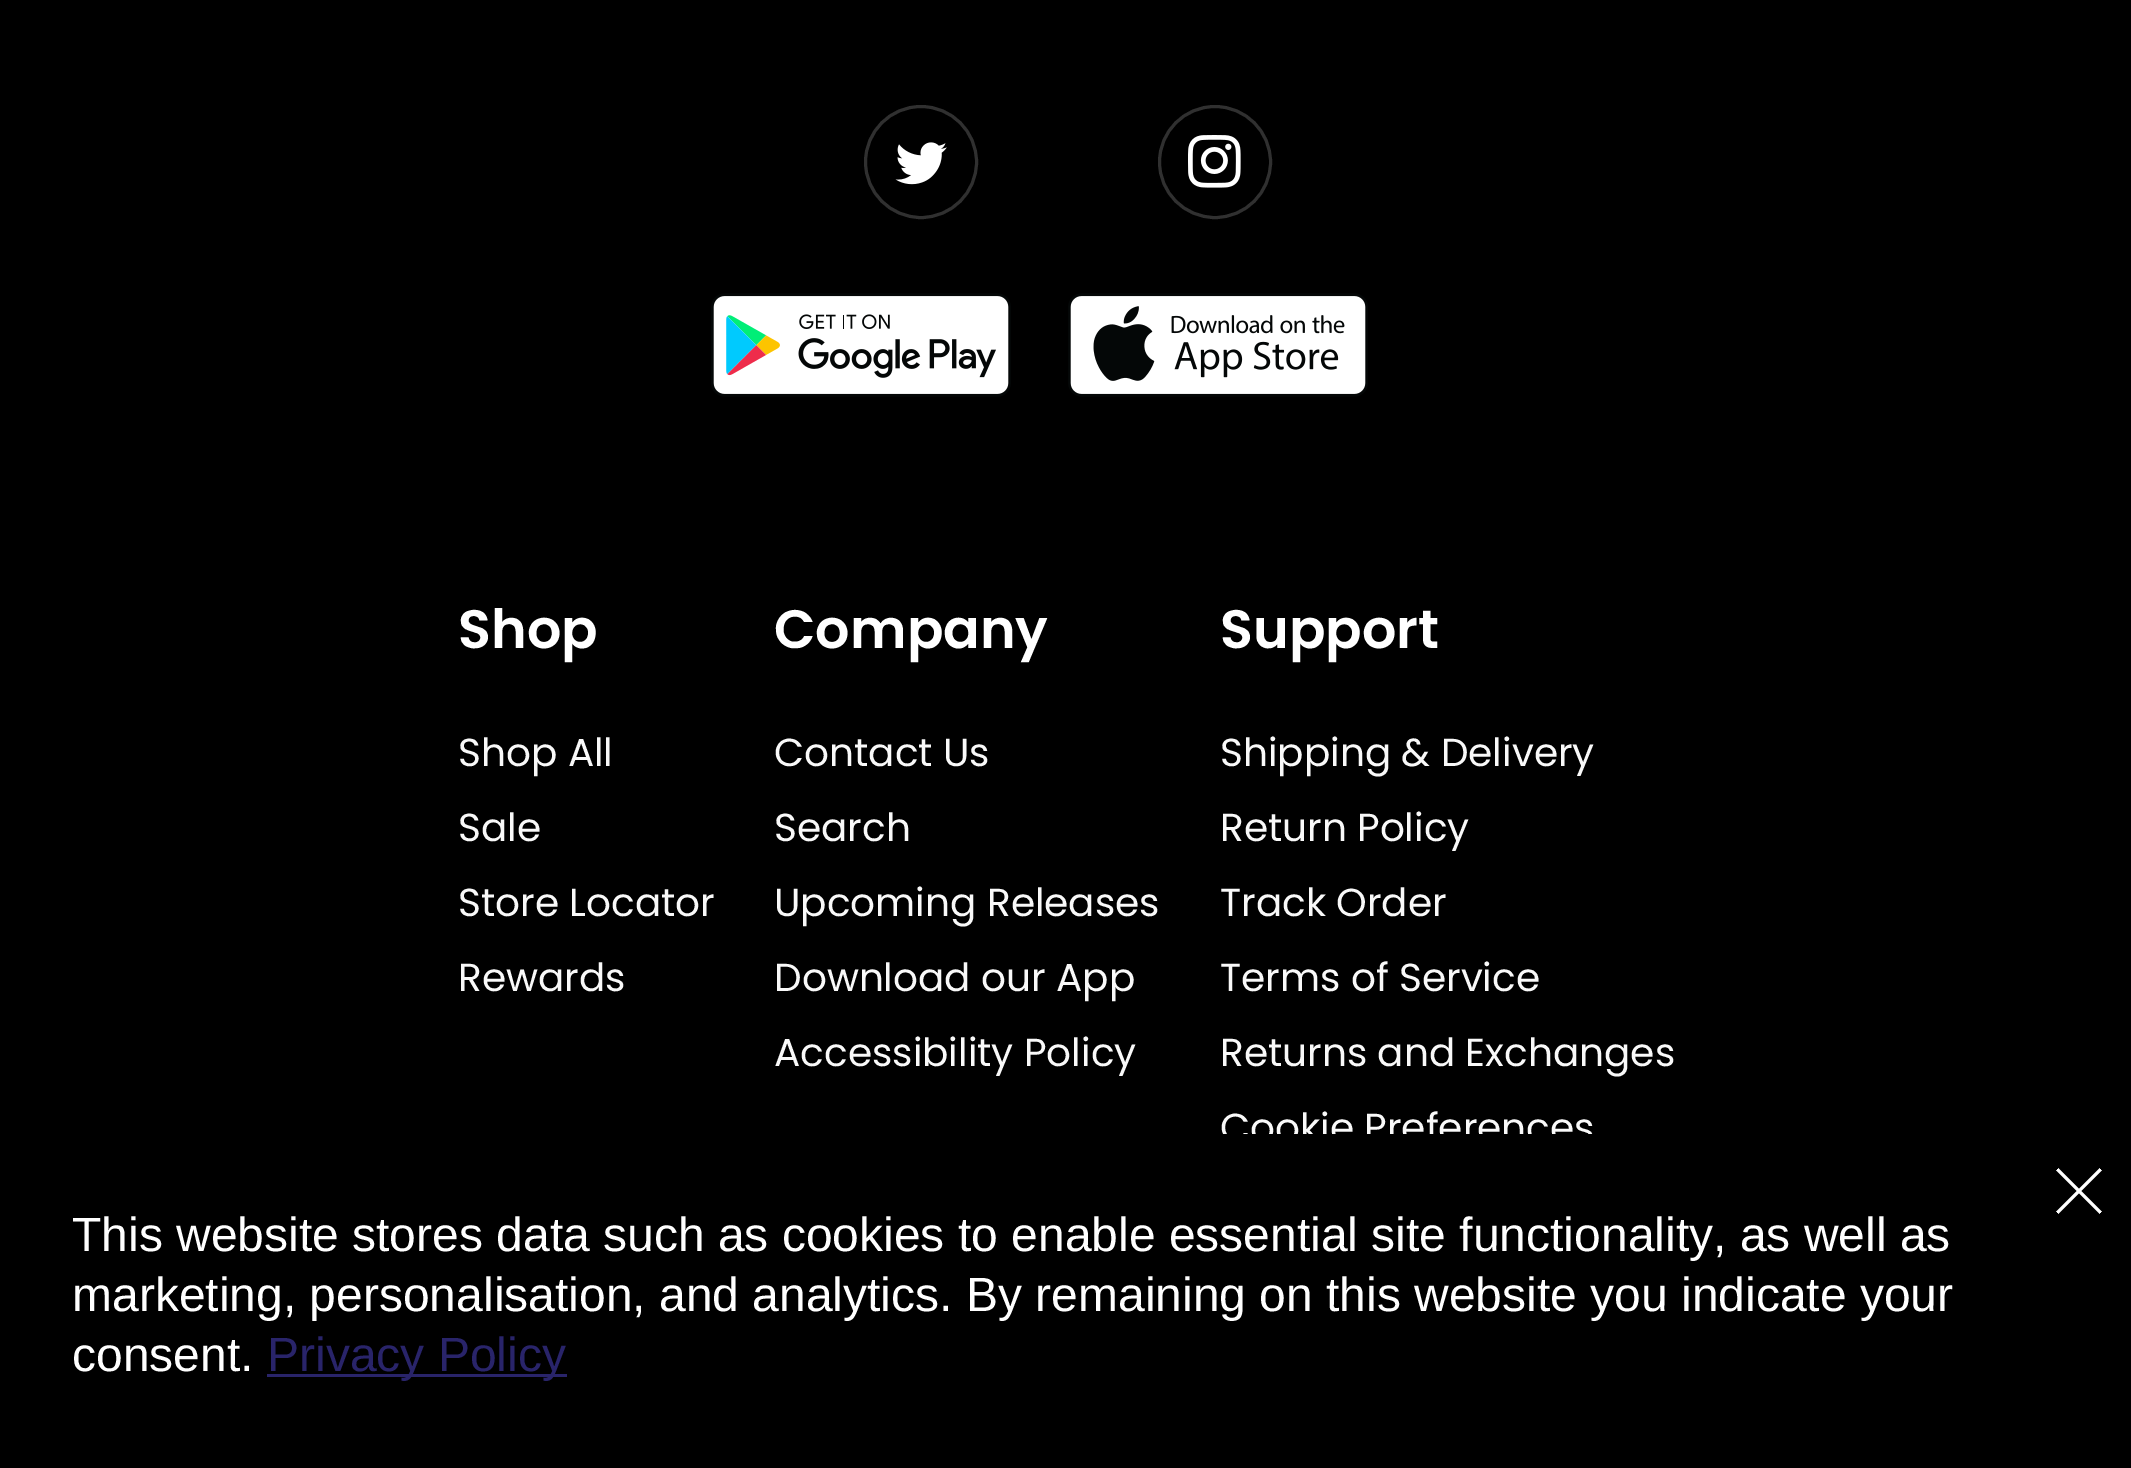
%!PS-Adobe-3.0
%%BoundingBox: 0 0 2131 1468
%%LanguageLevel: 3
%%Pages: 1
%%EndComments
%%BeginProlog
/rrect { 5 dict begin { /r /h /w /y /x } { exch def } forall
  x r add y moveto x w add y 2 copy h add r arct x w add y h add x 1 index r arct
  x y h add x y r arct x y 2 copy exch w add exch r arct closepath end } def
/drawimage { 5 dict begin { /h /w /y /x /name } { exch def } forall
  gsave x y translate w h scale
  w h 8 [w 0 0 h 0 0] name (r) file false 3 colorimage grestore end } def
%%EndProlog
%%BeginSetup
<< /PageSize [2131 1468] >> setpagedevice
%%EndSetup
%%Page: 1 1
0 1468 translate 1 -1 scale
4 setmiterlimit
0 setgray
0 0 2131 1468 rectfill
0.188 setgray
3 setlinewidth
newpath 921 162 55.5 0 360 arc closepath stroke
(images/1.raw) 895 142 52 43 drawimage
newpath 1215 162 55.5 0 360 arc closepath stroke
(images/2.raw) 1188 135 53 53 drawimage
(images/3.raw) 711 293 300 104 drawimage
(images/4.raw) 1068 293 300 104 drawimage
gsave
2049 1161 60 60 30 rrect clip newpath
1 setgray
newpath 2055 1167 moveto 2103 1215 lineto 2055 1215 moveto 2103 1167 lineto stroke
grestore
0.161 0.141 0.416 setrgbcolor
267 1374 300 3 rectfill
/Poppins-SemiBold [54 0 0 -54 0 0] selectfont
1 setgray
458 648 moveto (Shop) show
/Poppins-Regular [39 0 0 -39 0 0] selectfont
0.976 setgray
458 766 moveto (Shop All) show
458 841 moveto (Sale) show
458 916 moveto (Store Locator) show
458 991 moveto (Rewards) show
/Poppins-SemiBold [54 0 0 -54 0 0] selectfont
1 setgray
774 648 moveto (Company) show
/Poppins-Regular [39 0 0 -39 0 0] selectfont
0.976 setgray
774 766 moveto (Contact Us) show
774 841 moveto (Search) show
774 916 moveto (Upcoming Releases) show
774 991 moveto (Download our App) show
774 1066 moveto (Accessibility Policy) show
/Poppins-SemiBold [54 0 0 -54 0 0] selectfont
1 setgray
1220 648 moveto (Support) show
/Poppins-Regular [39 0 0 -39 0 0] selectfont
0.976 setgray
1220 766 moveto (Shipping & Delivery) show
1220 841 moveto (Return Policy) show
1220 916 moveto (Track Order) show
1220 991 moveto (Terms of Service) show
1220 1066 moveto (Returns and Exchanges) show
1220 1141 moveto (Cookie Preferences) show
0 setgray
1223 1134 370 8 rectfill
/LiberationSans-Regular [48 0 0 -48 0 0] selectfont
1 setgray
72 1251 moveto (This website stores data such as cookies to enable essential site functionality, as well as) show
72 1311 moveto (marketing, personalisation, and analytics. By remaining on this website you indicate your) show
72 1371 moveto (consent.) show
0.161 0.141 0.416 setrgbcolor
267 1371 moveto (Privacy Policy) show
showpage
%%EOF
